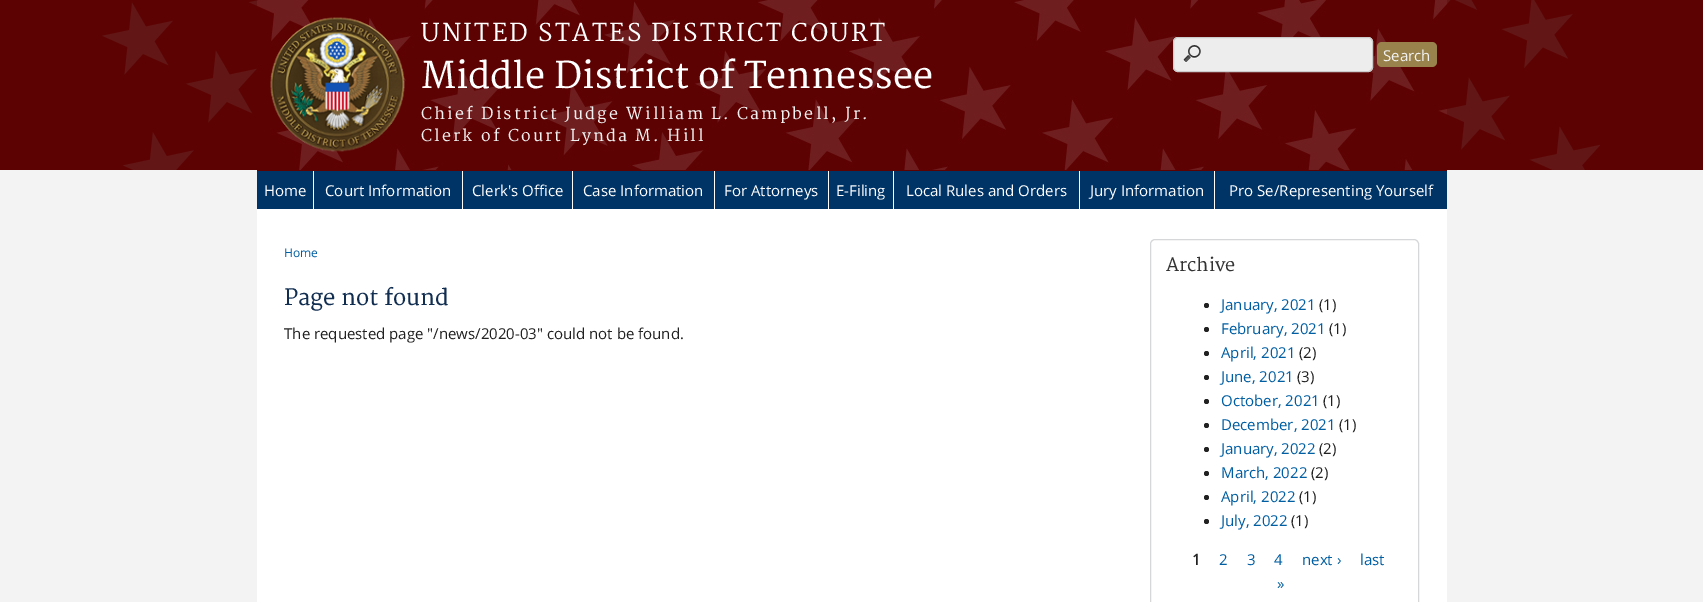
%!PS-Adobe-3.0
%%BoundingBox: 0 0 1703 602
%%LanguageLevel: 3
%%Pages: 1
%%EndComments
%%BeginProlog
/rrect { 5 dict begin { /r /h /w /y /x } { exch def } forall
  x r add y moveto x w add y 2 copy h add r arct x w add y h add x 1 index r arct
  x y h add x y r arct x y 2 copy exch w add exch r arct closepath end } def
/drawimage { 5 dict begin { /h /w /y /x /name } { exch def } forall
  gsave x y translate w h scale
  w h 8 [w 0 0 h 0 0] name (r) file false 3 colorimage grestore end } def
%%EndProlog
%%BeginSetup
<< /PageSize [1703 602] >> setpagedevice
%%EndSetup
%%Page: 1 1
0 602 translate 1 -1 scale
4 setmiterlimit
0.953 setgray
0 0 1703 602 rectfill
0.361 0.008 0.008 setrgbcolor
0 0 1703 170 rectfill
(images/1.raw) 102 0 1498 170 drawimage
1 setgray
257 209 1190 393 rectfill
0.365 0.008 0.012 setrgbcolor
257 170 1190 1 rectfill
(images/2.raw) 257 0 1190 170 drawimage
(images/3.raw) 270 17 135 135 drawimage
0.929 setgray
1173 37 200 35 5 rrect fill
(images/4.raw) 1183 45 18 18 drawimage
0.8 setgray
1173.5 37.5 199 34 4.5 rrect stroke
0.6 0.51 0.294 setrgbcolor
1377 42 60 25 5 rrect fill
0 0.2 0.4 setrgbcolor
257 171 1190 38 rectfill
1 setgray
313 171 1 38 rectfill
462 171 1 38 rectfill
572 171 1 38 rectfill
714 171 1 38 rectfill
828 171 1 38 rectfill
893 171 1 38 rectfill
1079 171 1 38 rectfill
1214 171 1 38 rectfill
0.839 0.843 0.851 setrgbcolor
1150.5 239.5 268 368 4.5 rrect stroke
0.129 setgray
newpath 1206.5 305.5 2.5 0 360 arc closepath fill
newpath 1206.5 329.5 2.5 0 360 arc closepath fill
newpath 1206.5 353.5 2.5 0 360 arc closepath fill
newpath 1206.5 377.5 2.5 0 360 arc closepath fill
newpath 1206.5 401.5 2.5 0 360 arc closepath fill
newpath 1206.5 425.5 2.5 0 360 arc closepath fill
newpath 1206.5 449.5 2.5 0 360 arc closepath fill
newpath 1206.5 473.5 2.5 0 360 arc closepath fill
newpath 1206.5 497.5 2.5 0 360 arc closepath fill
newpath 1206.5 521.5 2.5 0 360 arc closepath fill
/Merriweather-Regular [24 0 0 -24 0 0] selectfont
1 setgray
421 41 moveto 2.2 0 (UNITED STATES DISTRICT COURT) ashow
/Merriweather-Regular [36 0 0 -36 0 0] selectfont
421 88 moveto (Middle District of Tennessee) show
/Merriweather-Regular [16 0 0 -16 0 0] selectfont
0.945 setgray
421 119 moveto 2.2 0 (Chief District Judge William L. Campbell, Jr.) ashow
421 141 moveto 2.2 0 (Clerk of Court Lynda M. Hill) ashow
/OpenSans-Regular [15 0 0 -15 0 0] selectfont
1383 61 moveto (Search) show
1 setgray
264 196 moveto (Home) show
325 196 moveto (Court Information) show
472 196 moveto (Clerk's Office) show
583 196 moveto (Case Information) show
724 196 moveto (For Attorneys) show
836 196 moveto (E-Filing) show
906 196 moveto (Local Rules and Orders) show
1090 196 moveto (Jury Information) show
1229 196 moveto (Pro Se/Representing Yourself) show
/OpenSans-Regular [12 0 0 -12 0 0] selectfont
0 0.369 0.635 setrgbcolor
284 257 moveto (Home) show
/Merriweather-Regular [22 0 0 -22 0 0] selectfont
0.067 0.18 0.318 setrgbcolor
284 305 moveto (Page not found) show
/OpenSans-Regular [15 0 0 -15 0 0] selectfont
0.129 setgray
284 339 moveto (The requested page "/news/2020-03" could not be found.) show
/Merriweather-Regular [18 0 0 -18 0 0] selectfont
0.2 setgray
1166 271 moveto (Archive) show
/OpenSans-Regular [15 0 0 -15 0 0] selectfont
0 0.369 0.635 setrgbcolor
1221 310 moveto (January, 2021) show
0.129 setgray
1319 310 moveto (\(1\)) show
0 0.369 0.635 setrgbcolor
1221 334 moveto (February, 2021) show
0.129 setgray
1329 334 moveto (\(1\)) show
0 0.369 0.635 setrgbcolor
1221 358 moveto (April, 2021) show
0.129 setgray
1299 358 moveto (\(2\)) show
0 0.369 0.635 setrgbcolor
1221 382 moveto (June, 2021) show
0.129 setgray
1297 382 moveto (\(3\)) show
0 0.369 0.635 setrgbcolor
1221 406 moveto (October, 2021) show
0.129 setgray
1323 406 moveto (\(1\)) show
0 0.369 0.635 setrgbcolor
1221 430 moveto (December, 2021) show
0.129 setgray
1339 430 moveto (\(1\)) show
0 0.369 0.635 setrgbcolor
1221 454 moveto (January, 2022) show
0.129 setgray
1319 454 moveto (\(2\)) show
0 0.369 0.635 setrgbcolor
1221 478 moveto (March, 2022) show
0.129 setgray
1311 478 moveto (\(2\)) show
0 0.369 0.635 setrgbcolor
1221 502 moveto (April, 2022) show
0.129 setgray
1299 502 moveto (\(1\)) show
0 0.369 0.635 setrgbcolor
1221 526 moveto (July, 2022) show
0.129 setgray
1291 526 moveto (\(1\)) show
/OpenSans-Bold [15 0 0 -15 0 0] selectfont
1192 565 moveto (1) show
/OpenSans-Regular [15 0 0 -15 0 0] selectfont
0 0.369 0.635 setrgbcolor
1219 565 moveto (2) show
1247 565 moveto (3) show
1274 565 moveto (4) show
1302 565 moveto (next ›) show
1360 565 moveto (last) show
1277 589 moveto (») show
showpage
%%EOF
